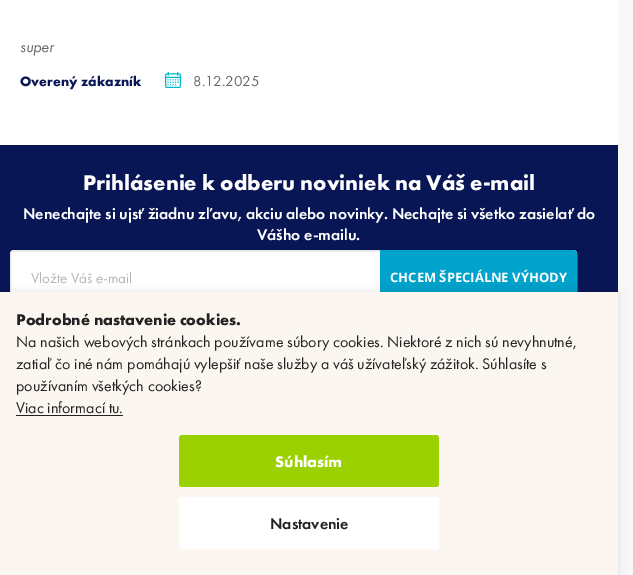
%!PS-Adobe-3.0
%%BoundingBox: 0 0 633 575
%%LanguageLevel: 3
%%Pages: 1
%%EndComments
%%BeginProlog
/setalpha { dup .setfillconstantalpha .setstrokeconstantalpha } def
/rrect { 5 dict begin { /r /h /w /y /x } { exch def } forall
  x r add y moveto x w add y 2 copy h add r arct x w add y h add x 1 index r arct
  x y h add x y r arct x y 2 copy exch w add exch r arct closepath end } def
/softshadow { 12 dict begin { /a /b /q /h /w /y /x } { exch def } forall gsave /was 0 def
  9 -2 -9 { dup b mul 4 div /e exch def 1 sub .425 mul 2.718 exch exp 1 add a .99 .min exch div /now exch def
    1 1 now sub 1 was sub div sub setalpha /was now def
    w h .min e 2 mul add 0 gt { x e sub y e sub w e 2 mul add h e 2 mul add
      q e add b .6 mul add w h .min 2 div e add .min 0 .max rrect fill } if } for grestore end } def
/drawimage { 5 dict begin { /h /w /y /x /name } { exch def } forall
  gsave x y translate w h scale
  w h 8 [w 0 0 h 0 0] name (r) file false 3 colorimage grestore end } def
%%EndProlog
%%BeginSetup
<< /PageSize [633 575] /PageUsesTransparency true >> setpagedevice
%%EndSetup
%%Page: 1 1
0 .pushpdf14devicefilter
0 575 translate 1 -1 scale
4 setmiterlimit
0.973 setgray
0 0 633 575 rectfill
1 setgray
0 0 618 145 rectfill
(images/1.raw) 165 72 16 16 drawimage
0.035 0.086 0.337 setrgbcolor
0 145 618 147 rectfill
1 setgray
10 250 567 55 4 rrect fill
0.925 setgray
newpath 14 252 moveto 573 252 lineto 575 252 576 253 576 255 curveto 576 254 lineto 576 252 575 251 573 251 curveto 14 251 lineto 12 251 11 252 11 254 curveto 11 255 lineto 11 253 12 252 14 252 curveto closepath fill
0.906 setgray
10.5 250.5 566 54 3.5 rrect stroke
0.004 0.635 0.796 setrgbcolor
newpath 380 250 moveto 573 250 lineto 575 250 577 252 577 254 curveto 577 301 lineto 577 303 575 305 573 305 curveto 380 305 lineto closepath fill
0 setgray
0 292 618 283 0 5 0.1 softshadow
0.984 0.969 0.941 setrgbcolor
0 292 618 283 rectfill
0.133 setgray
16 415 107 1 rectfill
0.608 0.82 0 setrgbcolor
179 435 260 52 3 rrect fill
1 setgray
180 498 258 50 2 rrect gsave fill grestore
2 setlinewidth
stroke
/FuturaPT-Italic [16 0 0 -16 0 0] selectfont
0.408 setgray
20 52 moveto (super) show
/FuturaPT-Bold [14 0 0 -14 0 0] selectfont
0.035 0.086 0.337 setrgbcolor
20 86 moveto (Overený zákazník) show
/FuturaPT-Regular [15 0 0 -15 0 0] selectfont
0.408 setgray
193 86 moveto (8.12.2025) show
/FuturaPT-Bold [22 0 0 -22 0 0] selectfont
1 setgray
83 190 moveto (Prihlásenie k odberu noviniek na Váš e-mail) show
/FuturaPT-Medium [16 0 0 -16 0 0] selectfont
23 219 moveto (Nenechajte si ujsť žiadnu zľavu, akciu alebo novinky. Nechajte si všetko zasielať do) show
257 240 moveto (Vášho e-mailu.) show
/FuturaPT-Regular [15 0 0 -15 0 0] selectfont
0.714 setgray
31 283 moveto (Vložte Váš e-mail) show
/OpenSans-Bold [13 0 0 -13 0 0] selectfont
1 setgray
390 282 moveto (CHCEM ŠPECIÁLNE VÝHODY) show
/FuturaPT-Bold [16 0 0 -16 0 0] selectfont
0.133 setgray
16 325 moveto (Podrobné nastavenie cookies.) show
/FuturaPT-Regular [16 0 0 -16 0 0] selectfont
16 347 moveto (Na našich webových stránkach používame súbory cookies. Niektoré z nich sú nevyhnutné,) show
16 369 moveto (zatiaľ čo iné nám pomáhajú vylepšiť naše služby a váš užívateľský zážitok. Súhlasíte s) show
16 391 moveto (používaním všetkých cookies?) show
16 413 moveto (Viac informací tu.) show
/FuturaPT-Bold [16 0 0 -16 0 0] selectfont
1 setgray
275 467 moveto (Súhlasím) show
/FuturaPT-Medium [16 0 0 -16 0 0] selectfont
0.133 setgray
270 529 moveto (Nastavenie) show
.poppdf14devicefilter showpage
%%EOF
